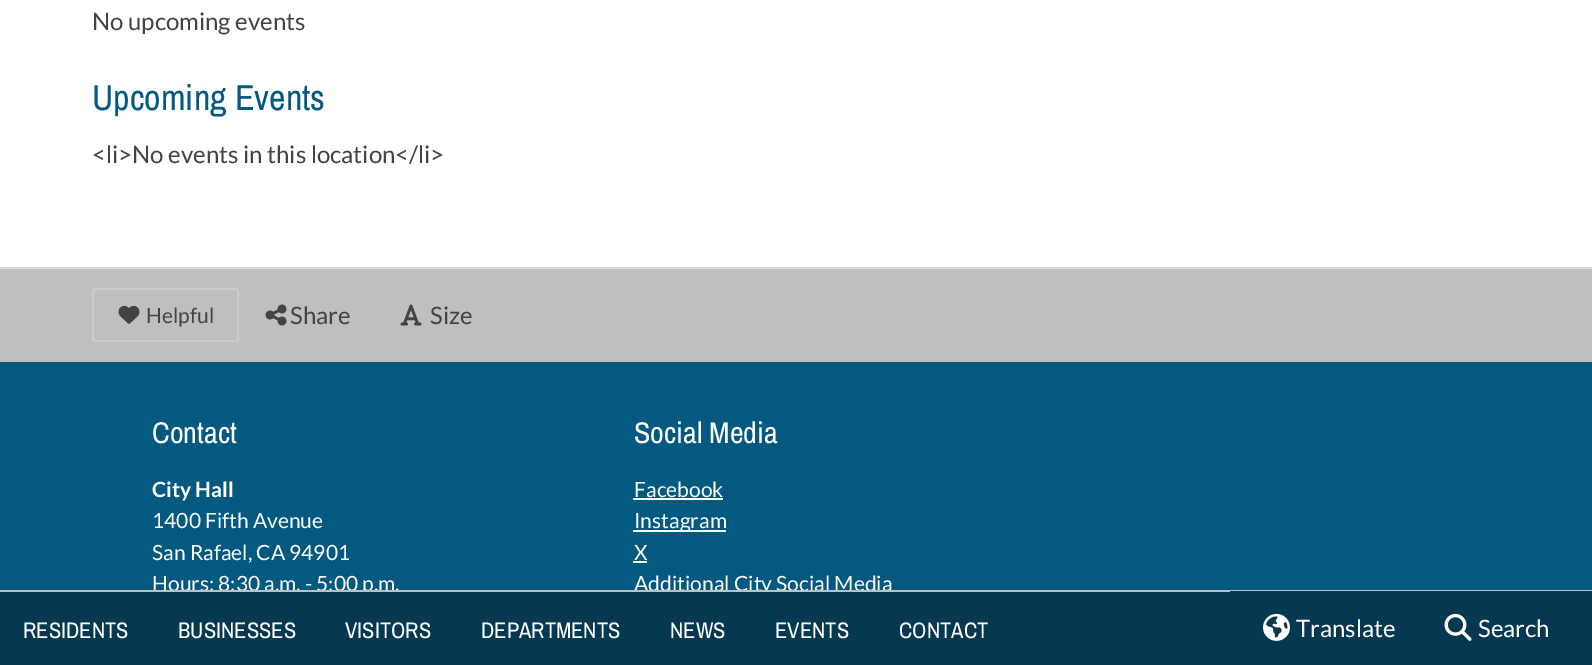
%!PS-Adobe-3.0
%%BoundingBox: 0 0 1592 665
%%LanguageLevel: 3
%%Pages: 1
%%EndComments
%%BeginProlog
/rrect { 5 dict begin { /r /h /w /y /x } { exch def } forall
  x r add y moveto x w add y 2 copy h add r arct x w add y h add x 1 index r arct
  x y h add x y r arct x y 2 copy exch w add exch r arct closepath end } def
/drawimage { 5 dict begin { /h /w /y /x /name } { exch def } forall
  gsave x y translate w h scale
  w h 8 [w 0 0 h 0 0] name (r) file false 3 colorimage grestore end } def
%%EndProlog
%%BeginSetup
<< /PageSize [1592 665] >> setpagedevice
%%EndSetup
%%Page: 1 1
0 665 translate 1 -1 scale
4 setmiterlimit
1 setgray
0 0 1592 665 rectfill
0.749 setgray
0 269 1592 93 rectfill
0.839 0.843 0.851 setrgbcolor
0 267 1592 2 rectfill
0.8 setgray
2 setlinewidth
93 289 145 52 2 rrect stroke
(images/1.raw) 118 305 22 19 drawimage
(images/2.raw) 265 304 22 22 drawimage
(images/3.raw) 400 304 22 22 drawimage
0.012 0.349 0.498 setrgbcolor
0 362 1592 228 rectfill
1 setgray
633 498 90 2 rectfill
633 530 93 2 rectfill
633 561 14 2 rectfill
/Lato-Regular [24 0 0 -24 0 0] selectfont
0.263 setgray
92 30 moveto (No upcoming events) show
/ArchivoNarrow-Regular [36 0 0 -36 0 0] selectfont
0.012 0.349 0.498 setrgbcolor
92 110 moveto (Upcoming Events) show
/Lato-Regular [24 0 0 -24 0 0] selectfont
0.263 setgray
92 163 moveto (<li>No events in this location</li>) show
/Lato-Regular [21 0 0 -21 0 0] selectfont
146 323 moveto (Helpful) show
/Lato-Regular [24 0 0 -24 0 0] selectfont
290 324 moveto (Share) show
430 324 moveto (Size) show
/ArchivoNarrow-Regular [30 0 0 -30 0 0] selectfont
1 setgray
152 443 moveto (Contact) show
/Lato-Bold [21 0 0 -21 0 0] selectfont
152 497 moveto (City Hall) show
/Lato-Regular [21 0 0 -21 0 0] selectfont
152 528 moveto (1400 Fifth Avenue) show
152 560 moveto (San Rafael, CA 94901) show
152 591 moveto (Hours: 8:30 a.m. - 5:00 p.m.) show
/ArchivoNarrow-Regular [30 0 0 -30 0 0] selectfont
634 443 moveto (Social Media) show
/Lato-Regular [21 0 0 -21 0 0] selectfont
634 497 moveto (Facebook) show
634 528 moveto (Instagram) show
634 560 moveto (X) show
634 591 moveto (Additional City Social Media) show
0.02 0.224 0.318 setrgbcolor
0 592 1230 73 rectfill
0.749 setgray
0 590 1592 2 rectfill
/ArchivoNarrow-Regular [22.5 0 0 -22.5 0 0] selectfont
1 setgray
23 638 moveto (RESIDENTS) show
178 638 moveto (BUSINESSES) show
345 638 moveto (VISITORS) show
481 638 moveto (DEPARTMENTS) show
670 638 moveto (NEWS) show
775 638 moveto (EVENTS) show
899 638 moveto (CONTACT) show
0.02 0.224 0.318 setrgbcolor
1230 591 362 74 rectfill
(images/4.raw) 1263 613 27 28 drawimage
/Lato-Regular [24 0 0 -24 0 0] selectfont
1 setgray
1296 637 moveto (Translate) show
(images/5.raw) 1444 613 28 28 drawimage
1478 637 moveto (Search) show
showpage
%%EOF
